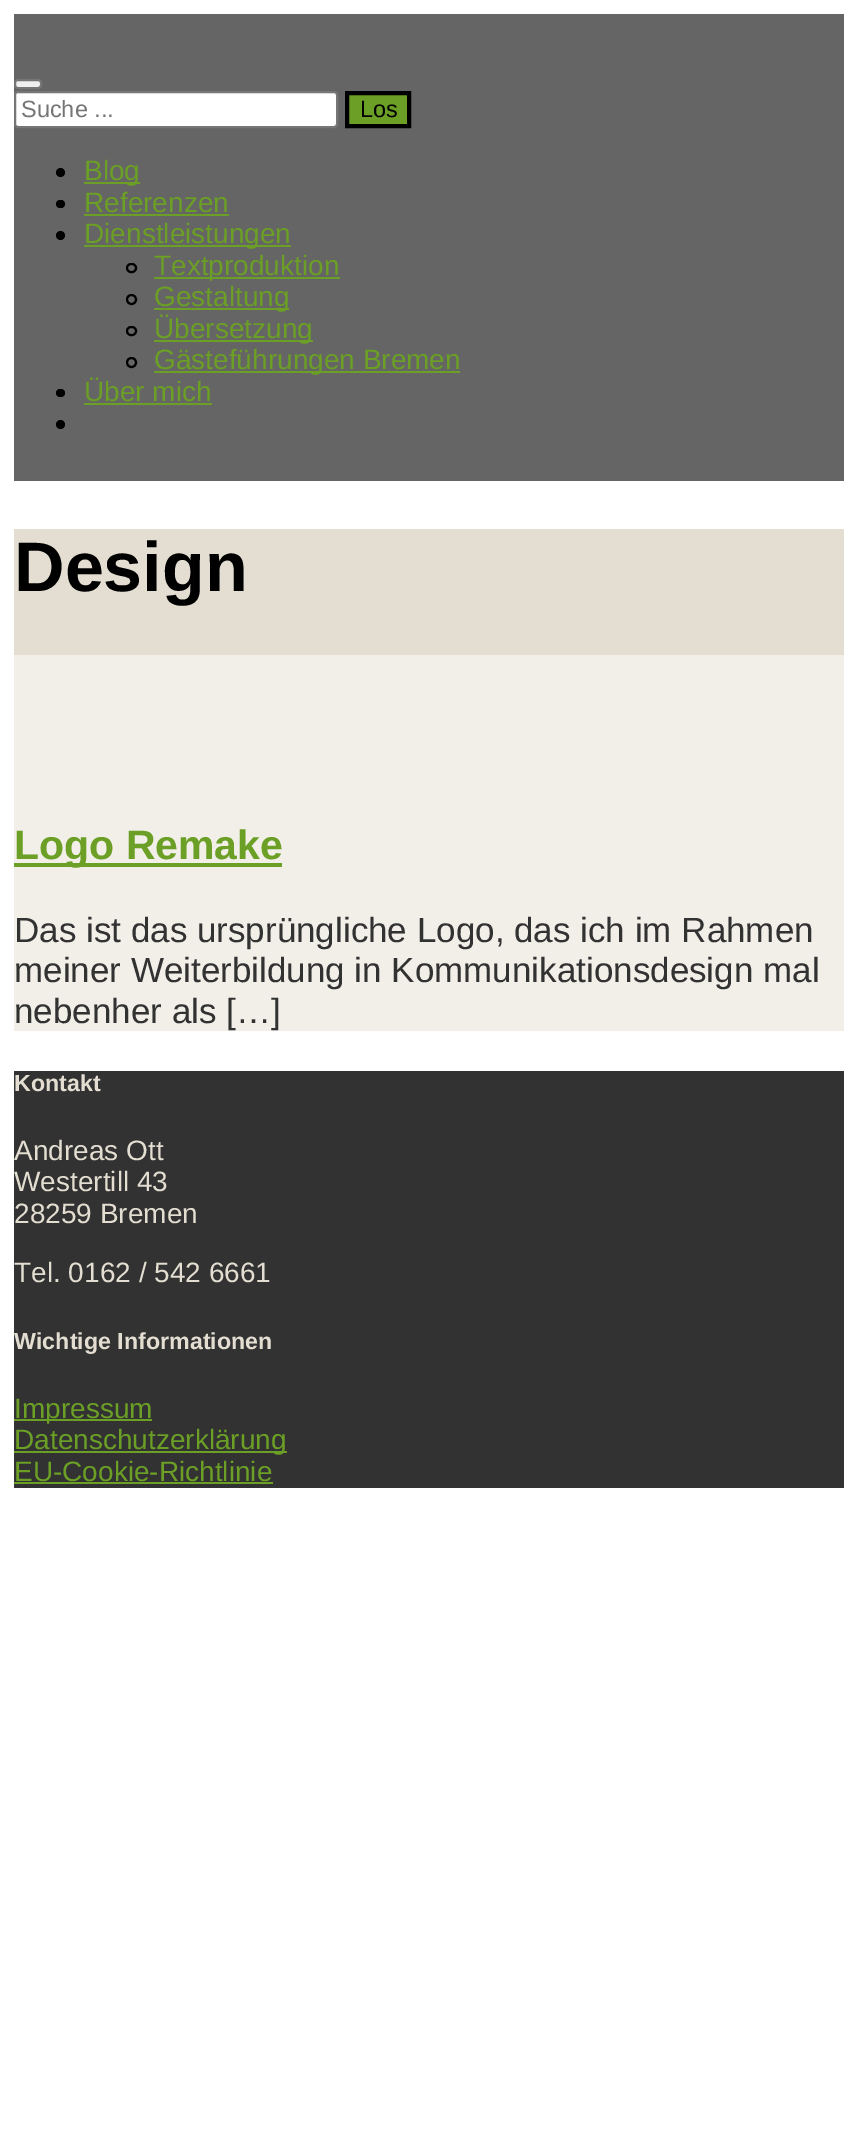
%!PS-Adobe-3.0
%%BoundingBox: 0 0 857 2154
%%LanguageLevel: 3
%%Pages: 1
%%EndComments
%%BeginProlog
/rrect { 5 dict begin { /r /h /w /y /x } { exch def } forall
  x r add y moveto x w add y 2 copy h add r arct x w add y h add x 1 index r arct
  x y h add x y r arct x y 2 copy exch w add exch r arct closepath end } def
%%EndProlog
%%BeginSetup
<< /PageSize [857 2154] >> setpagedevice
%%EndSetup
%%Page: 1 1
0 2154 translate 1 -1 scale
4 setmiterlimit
1 setgray
0 0 857 2154 rectfill
0.396 setgray
14 14 830 467 rectfill
0.937 setgray
15 80 26 8 3 rrect gsave fill grestore
0.463 setgray
2 setlinewidth
stroke
1 setgray
15 92 322 35 3 rrect gsave fill grestore
0.463 setgray
stroke
0.42 0.624 0.145 setrgbcolor
newpath 347 93 moveto 409 93 lineto 409 126 lineto 347 126 lineto closepath gsave fill grestore
0 setgray
4 setlinewidth
stroke
newpath 60.5 172.5 4.5 0 360 arc closepath fill
0.42 0.624 0.145 setrgbcolor
84 182 56 2 rectfill
0 setgray
56 200 9 8 4 rrect fill
0.42 0.624 0.145 setrgbcolor
84 214 145 2 rectfill
0 setgray
newpath 60.5 235.5 4.5 0 360 arc closepath fill
0.42 0.624 0.145 setrgbcolor
84 245 207 2 rectfill
0 setgray
2 setlinewidth
127 264 9 8 4 rrect stroke
0.42 0.624 0.145 setrgbcolor
154 277 186 2 rectfill
0 setgray
newpath 131.5 299.5 4.5 0 360 arc closepath stroke
0.42 0.624 0.145 setrgbcolor
154 308 135 2 rectfill
0 setgray
127 327 9 8 4 rrect stroke
0.42 0.624 0.145 setrgbcolor
154 340 159 2 rectfill
0 setgray
newpath 131.5 362.5 4.5 0 360 arc closepath stroke
0.42 0.624 0.145 setrgbcolor
154 371 306 2 rectfill
0 setgray
56 389 9 8 4 rrect fill
0.42 0.624 0.145 setrgbcolor
84 403 128 2 rectfill
0 setgray
newpath 60.5 424.5 4.5 0 360 arc closepath fill
0.89 0.871 0.82 setrgbcolor
14 529 830 126 rectfill
0.945 0.937 0.91 setrgbcolor
14 655 830 376 rectfill
0.42 0.624 0.145 setrgbcolor
14 863 268 4 rectfill
0.196 setgray
14 1071 830 417 rectfill
0.42 0.624 0.145 setrgbcolor
14 1419 138 2 rectfill
14 1451 273 2 rectfill
14 1482 259 2 rectfill
/LiberationSans-Regular [23.5 0 0 -23.5 0 0] selectfont
0.459 setgray
21 117 moveto (Suche ...) show
0 setgray
360 117 moveto (Los) show
/LiberationSans-Regular [28 0 0 -28 0 0] selectfont
0.42 0.624 0.145 setrgbcolor
84 180 moveto (Blog) show
84 212 moveto (Referenzen) show
84 243 moveto (Dienstleistungen) show
154 275 moveto (Textproduktion) show
154 306 moveto (Gestaltung) show
154 338 moveto (Übersetzung) show
154 369 moveto (Gästeführungen Bremen) show
84 401 moveto (Über mich) show
/LiberationSans-Bold [70 0 0 -70 0 0] selectfont
0 setgray
14 591 moveto (Design) show
/LiberationSans-Bold [41 0 0 -41 0 0] selectfont
0.42 0.624 0.145 setrgbcolor
14 859 moveto (Logo Remake) show
/LiberationSans-Regular [35 0 0 -35 0 0] selectfont
0.196 setgray
14 942 moveto (Das ist das ursprüngliche Logo, das ich im Rahmen) show
14 982 moveto (meiner Weiterbildung in Kommunikationsdesign mal) show
14 1023 moveto (nebenher als […]) show
/LiberationSans-Bold [23.25 0 0 -23.25 0 0] selectfont
0.89 0.871 0.82 setrgbcolor
14 1091 moveto (Kontakt) show
/LiberationSans-Regular [28 0 0 -28 0 0] selectfont
14 1160 moveto (Andreas Ott) show
14 1191 moveto (Westertill 43) show
14 1223 moveto (28259 Bremen) show
14 1282 moveto (Tel. 0162 / 542 6661) show
/LiberationSans-Bold [23.25 0 0 -23.25 0 0] selectfont
14 1349 moveto (Wichtige Informationen) show
/LiberationSans-Regular [28 0 0 -28 0 0] selectfont
0.42 0.624 0.145 setrgbcolor
14 1418 moveto (Impressum) show
14 1449 moveto (Datenschutzerklärung) show
14 1481 moveto (EU-Cookie-Richtlinie) show
showpage
%%EOF
